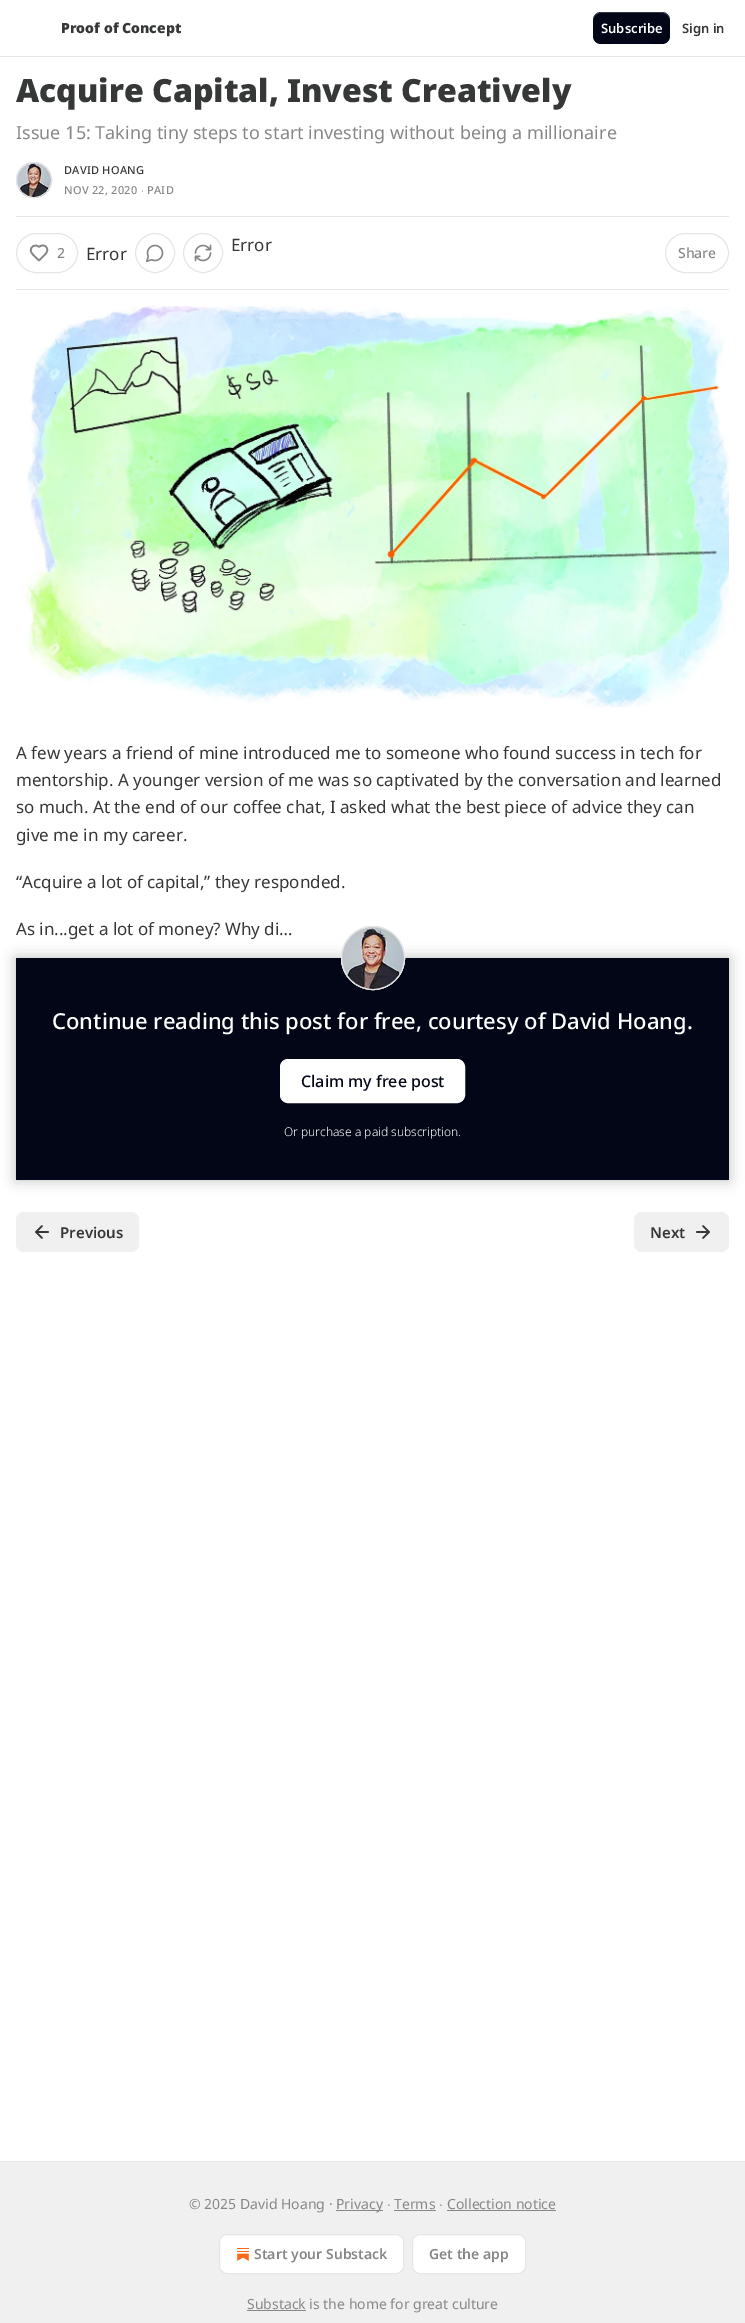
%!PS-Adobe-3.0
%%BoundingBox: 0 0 745 2323
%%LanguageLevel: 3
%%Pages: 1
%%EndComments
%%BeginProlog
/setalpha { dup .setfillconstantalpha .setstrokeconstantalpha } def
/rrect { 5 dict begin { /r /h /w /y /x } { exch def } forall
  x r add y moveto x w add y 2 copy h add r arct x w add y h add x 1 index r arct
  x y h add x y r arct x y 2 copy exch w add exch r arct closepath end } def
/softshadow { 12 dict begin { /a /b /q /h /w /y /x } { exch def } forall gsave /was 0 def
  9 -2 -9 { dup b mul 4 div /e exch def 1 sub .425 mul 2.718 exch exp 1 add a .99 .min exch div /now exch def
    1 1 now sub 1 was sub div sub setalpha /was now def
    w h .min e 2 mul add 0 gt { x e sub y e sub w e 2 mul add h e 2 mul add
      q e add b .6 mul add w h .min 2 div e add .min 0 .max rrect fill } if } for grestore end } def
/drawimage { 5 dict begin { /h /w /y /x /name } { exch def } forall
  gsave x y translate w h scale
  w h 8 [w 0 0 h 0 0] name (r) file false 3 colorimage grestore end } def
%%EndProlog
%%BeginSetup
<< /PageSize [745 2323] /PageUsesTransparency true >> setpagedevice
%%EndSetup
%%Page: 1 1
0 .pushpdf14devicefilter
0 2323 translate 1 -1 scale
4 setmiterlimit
1 setgray
0 0 745 2323 rectfill
0.902 setgray
0 56 745 1 rectfill
0.008 0.024 0.09 setrgbcolor
593 12 77 32 8 rrect fill
0.1 setalpha
0 setgray
newpath 593 35 moveto 593 46 603 44 611 44 curveto 652 44 lineto 660 44 670 46 670 35 curveto 670 39 666 43 662 43 curveto 601 43 lineto 597 43 593 39 593 35 curveto closepath fill
0.2 setalpha
1 setgray
newpath 601 13 moveto 662 13 lineto 666 13 670 17 670 21 curveto 670 10 660 12 652 12 curveto 611 12 lineto 603 12 593 10 593 21 curveto 593 17 597 13 601 13 curveto closepath fill
1 setalpha
0.902 setgray
newpath 34 180 17.5 0 360 arc closepath stroke
(images/1.raw) 16 162 36 36 drawimage
newpath 34 180 17.5 0 360 arc closepath stroke
16 216 713 1 rectfill
16 289 713 1 rectfill
newpath 155 253 19.5 0 360 arc closepath stroke
(images/2.raw) 145 244 19 19 drawimage
newpath 203 253 19.5 0 360 arc closepath stroke
(images/3.raw) 194 244 18 18 drawimage
16.5 233.5 61 39 19.5 rrect stroke
0.525 0.529 0.529 setrgbcolor
1.7 setlinewidth
1 setlinecap
1 setlinejoin
newpath 45 254.5 moveto 51 248.5 44 242.5 39 247 curveto 35.5 243.5 29.5 246.5 31 251.5 curveto 32 254.5 37 258.5 39 260.5 curveto closepath stroke
0.902 setgray
1 setlinewidth
0 setlinecap
0 setlinejoin
665.5 233.5 63 39 19.5 rrect stroke
(images/4.raw) 25 306 704 401 drawimage
0.008 0.024 0.09 setrgbcolor
16 958 713 222 rectfill
1 setgray
280.5 1059.5 184 43 7.5 rrect gsave fill grestore
stroke
gsave
newpath 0 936 moveto 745 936 lineto 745 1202 lineto 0 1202 lineto closepath 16 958 moveto 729 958 lineto 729 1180 lineto 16 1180 lineto closepath eoclip newpath
0 setgray
16 958 713 222 0 7 0.25 softshadow
grestore
0.902 setgray
newpath 373 958 31.5 0 360 arc closepath stroke
(images/5.raw) 341 926 64 64 drawimage
newpath 373 958 31.5 0 360 arc closepath stroke
0.941 setgray
16 1212 123 40 8 rrect fill
0.212 0.216 0.216 setrgbcolor
1.7 setlinewidth
1 setlinecap
1 setlinejoin
newpath 42 1238 moveto 36 1232 lineto 42 1226 lineto 48 1232 moveto 36 1232 lineto stroke
0.941 setgray
634 1212 95 40 8 rrect fill
0.212 0.216 0.216 setrgbcolor
newpath 697 1232 moveto 709 1232 lineto 703 1226 moveto 709 1232 lineto 703 1238 lineto stroke
0.941 setgray
0 2162 745 161 rectfill
0.902 setgray
0 2161 745 1 rectfill
0.525 0.529 0.529 setrgbcolor
336 2210 47 1 rectfill
394 2210 42 1 rectfill
447 2210 109 1 rectfill
1 setgray
219.5 2234.5 184 39 7.5 rrect gsave fill grestore
0.902 setgray
1 setlinewidth
0 setlinecap
0 setlinejoin
stroke
(images/6.raw) 237 2248 12 13 drawimage
1 setgray
412.5 2234.5 113 39 7.5 rrect gsave fill grestore
0.902 setgray
stroke
0.525 0.529 0.529 setrgbcolor
247 2310 59 1 rectfill
/NotoSans-Black [14 0 0 -14 0 0] selectfont
0.212 0.216 0.216 setrgbcolor
61 33 moveto (Proof of Concept) show
/NotoSans-SemiBold [13 0 0 -13 0 0] selectfont
1 setgray
601 33 moveto (Subscribe) show
0.212 0.216 0.216 setrgbcolor
682 33 moveto (Sign in) show
/NotoSans-Black [32 0 0 -32 0 0] selectfont
16 102 moveto (Acquire Capital, Invest Creatively) show
/NotoSans-Regular [18 0 0 -18 0 0] selectfont
0.525 0.529 0.529 setrgbcolor
16 139 moveto (Issue 15: Taking tiny steps to start investing without being a millionaire) show
/NotoSans-Medium [11 0 0 -11 0 0] selectfont
0.212 0.216 0.216 setrgbcolor
64 174 moveto 0.25 0 (DAVID HOANG) ashow
0.525 0.529 0.529 setrgbcolor
64 194 moveto 0.25 0 (NOV 22, 2020) ashow
/LiberationSans-Regular [11 0 0 -11 0 0] selectfont
141 194 moveto 0.25 0 (∙) ashow
/NotoSans-Medium [11 0 0 -11 0 0] selectfont
147 194 moveto 0.25 0 (PAID) ashow
/NotoSans-Regular [17 0 0 -17 0 0] selectfont
0.212 0.216 0.216 setrgbcolor
231 251 moveto (Error) show
/NotoSans-Medium [14 0 0 -14 0 0] selectfont
0.525 0.529 0.529 setrgbcolor
57 258 moveto (2) show
/NotoSans-Regular [17 0 0 -17 0 0] selectfont
0.212 0.216 0.216 setrgbcolor
86 260 moveto (Error) show
/NotoSans-Medium [14 0 0 -14 0 0] selectfont
0.525 0.529 0.529 setrgbcolor
678 258 moveto (Share) show
/NotoSans-Regular [17 0 0 -17 0 0] selectfont
0.212 0.216 0.216 setrgbcolor
16 759 moveto (A few years a friend of mine introduced me to someone who found success in tech for) show
16 786 moveto (mentorship. A younger version of me was so captivated by the conversation and learned) show
16 813 moveto (so much. At the end of our coffee chat, I asked what the best piece of advice they can) show
16 841 moveto (give me in my career.) show
16 888 moveto (“Acquire a lot of capital,” they responded.) show
16 935 moveto (As in...get a lot of money? Why di…) show
/NotoSans-Medium [22 0 0 -22 0 0] selectfont
1 setgray
52 1029 moveto (Continue reading this post for free, courtesy of David Hoang.) show
/NotoSans-Medium [16 0 0 -16 0 0] selectfont
0.008 0.024 0.09 setrgbcolor
301 1087 moveto (Claim my free post) show
/NotoSans-Light [12 0 0 -12 0 0] selectfont
1 setgray
284 1136 moveto (Or purchase a paid subscription.) show
/NotoSans-SemiBold [15 0 0 -15 0 0] selectfont
0.212 0.216 0.216 setrgbcolor
60 1238 moveto (Previous) show
650 1238 moveto (Next) show
/NotoSans-Regular [14 0 0 -14 0 0] selectfont
0.525 0.529 0.529 setrgbcolor
189 2209 moveto (© 2025 David Hoang ·) show
336 2209 moveto (Privacy) show
/LiberationSans-Regular [14 0 0 -14 0 0] selectfont
387 2209 moveto (∙) show
/NotoSans-Regular [14 0 0 -14 0 0] selectfont
394 2209 moveto (Terms) show
/LiberationSans-Regular [14 0 0 -14 0 0] selectfont
439 2209 moveto (∙) show
/NotoSans-Regular [14 0 0 -14 0 0] selectfont
447 2209 moveto (Collection notice) show
/NotoSans-SemiBold [14 0 0 -14 0 0] selectfont
254 2259 moveto (Start your Substack) show
429 2259 moveto (Get the app) show
/NotoSans-Regular [14 0 0 -14 0 0] selectfont
247 2309 moveto (Substack is the home for great culture) show
.poppdf14devicefilter showpage
%%EOF
